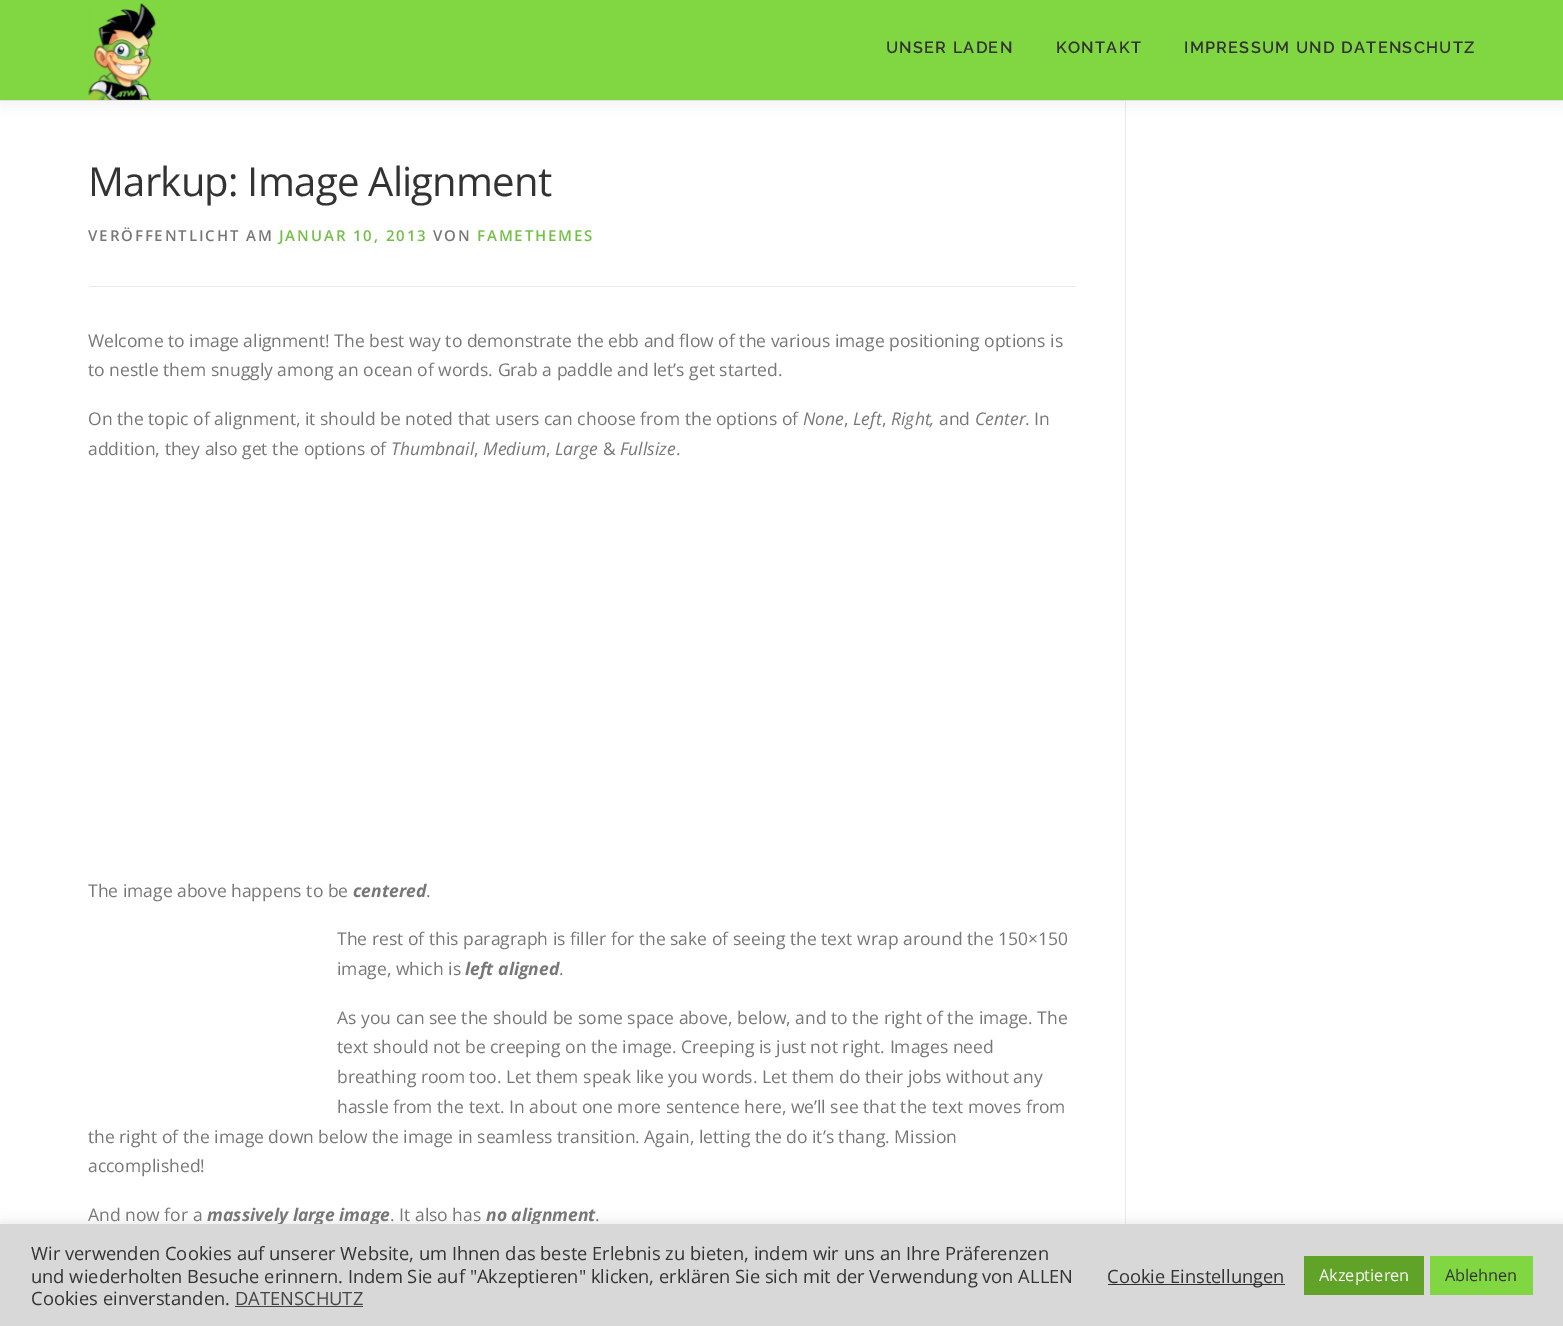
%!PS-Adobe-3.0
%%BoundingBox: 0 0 1563 1326
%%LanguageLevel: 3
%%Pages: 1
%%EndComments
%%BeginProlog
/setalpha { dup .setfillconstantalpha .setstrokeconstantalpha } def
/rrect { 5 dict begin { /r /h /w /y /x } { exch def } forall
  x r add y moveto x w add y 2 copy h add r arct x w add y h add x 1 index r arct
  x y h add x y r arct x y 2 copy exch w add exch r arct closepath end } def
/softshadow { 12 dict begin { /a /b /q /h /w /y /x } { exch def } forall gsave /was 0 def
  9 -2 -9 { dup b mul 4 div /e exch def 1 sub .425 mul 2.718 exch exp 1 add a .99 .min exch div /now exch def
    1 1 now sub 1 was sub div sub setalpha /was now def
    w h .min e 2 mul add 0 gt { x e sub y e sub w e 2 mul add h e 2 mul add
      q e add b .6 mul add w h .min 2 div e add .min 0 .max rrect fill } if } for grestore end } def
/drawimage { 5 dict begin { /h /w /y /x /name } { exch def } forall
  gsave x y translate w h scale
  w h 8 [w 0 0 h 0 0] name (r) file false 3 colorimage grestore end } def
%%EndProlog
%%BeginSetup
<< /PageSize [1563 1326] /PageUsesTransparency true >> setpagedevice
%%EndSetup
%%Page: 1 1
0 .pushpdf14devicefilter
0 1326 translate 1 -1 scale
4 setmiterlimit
1 setgray
0 0 1563 1326 rectfill
0.914 setgray
0 100 1563 1 rectfill
1125 101 1 1123 rectfill
0.196 setgray
0 6 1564 100 0 6 0.06 softshadow
0.506 0.843 0.259 setrgbcolor
0 0 1563 100 rectfill
(images/1.raw) 88 3 69 97 drawimage
0.914 setgray
89 286 987 1 rectfill
0.675 0.671 0.671 setrgbcolor
0 1223 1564 102 0 6 0.3 softshadow
/Raleway-SemiBold [16.25 0 0 -16.25 0 0] selectfont
0.2 setgray
886 53 moveto 1.25 0 (UNSER LADEN) ashow
1056 53 moveto 1.25 0 (KONTAKT) ashow
1184 53 moveto 1.25 0 (IMPRESSUM UND DATENSCHUTZ) ashow
/OpenSans-Regular [40 0 0 -40 0 0] selectfont
88 196 moveto -0.75 0 (Markup: Image Alignment) ashow
/OpenSans-SemiBold [15 0 0 -15 0 0] selectfont
0.467 setgray
88 241 moveto 1.9 0 (VERÖFFENTLICHT AM) ashow
0.443 0.749 0.267 setrgbcolor
279 241 moveto 1.9 0 (JANUAR 10, 2013) ashow
0.467 setgray
433 241 moveto 1.9 0 (VON) ashow
0.443 0.749 0.267 setrgbcolor
477 241 moveto 1.9 0 (FAMETHEMES) ashow
/OpenSans-Regular [17.5 0 0 -17.5 0 0] selectfont
0.467 setgray
88 347 moveto (Welcome to image alignment! The best way to demonstrate the ebb and flow of the various image positioning options is) show
88 376 moveto (to nestle them snuggly among an ocean of words. Grab a paddle and let’s get started.) show
88 425 moveto (On the topic of alignment, it should be noted that users can choose from the options of) show
/OpenSans-Italic [17.5 0 0 -17.5 0 0] selectfont
803 425 moveto (None) show
/OpenSans-Regular [17.5 0 0 -17.5 0 0] selectfont
844 425 moveto (,) show
/OpenSans-Italic [17.5 0 0 -17.5 0 0] selectfont
853 425 moveto (Left) show
/OpenSans-Regular [17.5 0 0 -17.5 0 0] selectfont
882 425 moveto (,) show
/OpenSans-Italic [17.5 0 0 -17.5 0 0] selectfont
891 425 moveto (Right,) show
/OpenSans-Regular [17.5 0 0 -17.5 0 0] selectfont
939 425 moveto (and) show
/OpenSans-Italic [17.5 0 0 -17.5 0 0] selectfont
975 425 moveto (Center) show
/OpenSans-Regular [17.5 0 0 -17.5 0 0] selectfont
1025 425 moveto (. In) show
88 455 moveto (addition, they also get the options of) show
/OpenSans-Italic [17.5 0 0 -17.5 0 0] selectfont
391 455 moveto (Thumbnail) show
/OpenSans-Regular [17.5 0 0 -17.5 0 0] selectfont
474 455 moveto (,) show
/OpenSans-Italic [17.5 0 0 -17.5 0 0] selectfont
483 455 moveto (Medium) show
/OpenSans-Regular [17.5 0 0 -17.5 0 0] selectfont
546 455 moveto (,) show
/OpenSans-Italic [17.5 0 0 -17.5 0 0] selectfont
555 455 moveto (Large) show
/OpenSans-Regular [17.5 0 0 -17.5 0 0] selectfont
603 455 moveto (&) show
/OpenSans-Italic [17.5 0 0 -17.5 0 0] selectfont
620 455 moveto (Fullsize) show
/OpenSans-Regular [17.5 0 0 -17.5 0 0] selectfont
676 455 moveto (.) show
88 897 moveto (The image above happens to be) show
/OpenSans-BoldItalic [17.5 0 0 -17.5 0 0] selectfont
353 897 moveto (centered) show
/OpenSans-Regular [17.5 0 0 -17.5 0 0] selectfont
426 897 moveto (.) show
337 945 moveto (The rest of this paragraph is filler for the sake of seeing the text wrap around the 150×150) show
337 975 moveto (image, which is) show
/OpenSans-BoldItalic [17.5 0 0 -17.5 0 0] selectfont
465 975 moveto (left aligned) show
/OpenSans-Regular [17.5 0 0 -17.5 0 0] selectfont
559 975 moveto (.) show
337 1024 moveto (As you can see the should be some space above, below, and to the right of the image. The) show
337 1053 moveto (text should not be creeping on the image. Creeping is just not right. Images need) show
337 1083 moveto (breathing room too. Let them speak like you words. Let them do their jobs without any) show
337 1113 moveto (hassle from the text. In about one more sentence here, we’ll see that the text moves from) show
88 1143 moveto (the right of the image down below the image in seamless transition. Again, letting the do it’s thang. Mission) show
88 1172 moveto (accomplished!) show
88 1221 moveto (And now for a) show
/OpenSans-BoldItalic [17.5 0 0 -17.5 0 0] selectfont
207 1221 moveto (massively large image) show
/OpenSans-Regular [17.5 0 0 -17.5 0 0] selectfont
390 1221 moveto (. It also has) show
/OpenSans-BoldItalic [17.5 0 0 -17.5 0 0] selectfont
486 1221 moveto (no alignment) show
/OpenSans-Regular [17.5 0 0 -17.5 0 0] selectfont
595 1221 moveto (.) show
0.847 setgray
0 1224 1563 102 rectfill
/OpenSans-Regular [18.33 0 0 -18.33 0 0] selectfont
0.2 setgray
31 1260 moveto (Wir verwenden Cookies auf unserer Website, um Ihnen das beste Erlebnis zu bieten, indem wir uns an Ihre Präferenzen) show
31 1283 moveto (und wiederholten Besuche erinnern. Indem Sie auf "Akzeptieren" klicken, erklären Sie sich mit der Verwendung von ALLEN) show
31 1305 moveto (Cookies einverstanden.) show
0.267 setgray
235 1305 moveto (DATENSCHUTZ) show
235 1306 128 1 rectfill
0.2 setgray
1108 1284 177 1 rectfill
1107 1283 moveto (Cookie Einstellungen) show
0.38 0.635 0.161 setrgbcolor
1304 1256 120 39 rectfill
/OpenSans-Regular [16.25 0 0 -16.25 0 0] selectfont
1 setgray
1319 1281 moveto (Akzeptieren) show
0.506 0.843 0.259 setrgbcolor
1430 1256 103 39 rectfill
0.2 setgray
1445 1281 moveto (Ablehnen) show
.poppdf14devicefilter showpage
%%EOF
